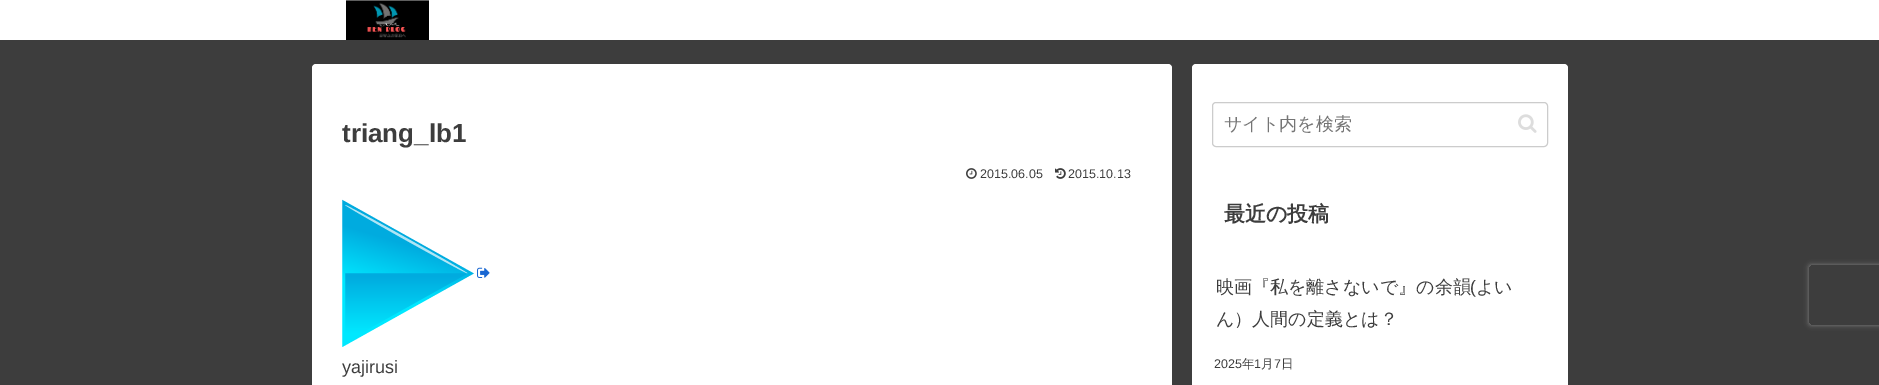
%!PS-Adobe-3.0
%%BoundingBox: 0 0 1879 385
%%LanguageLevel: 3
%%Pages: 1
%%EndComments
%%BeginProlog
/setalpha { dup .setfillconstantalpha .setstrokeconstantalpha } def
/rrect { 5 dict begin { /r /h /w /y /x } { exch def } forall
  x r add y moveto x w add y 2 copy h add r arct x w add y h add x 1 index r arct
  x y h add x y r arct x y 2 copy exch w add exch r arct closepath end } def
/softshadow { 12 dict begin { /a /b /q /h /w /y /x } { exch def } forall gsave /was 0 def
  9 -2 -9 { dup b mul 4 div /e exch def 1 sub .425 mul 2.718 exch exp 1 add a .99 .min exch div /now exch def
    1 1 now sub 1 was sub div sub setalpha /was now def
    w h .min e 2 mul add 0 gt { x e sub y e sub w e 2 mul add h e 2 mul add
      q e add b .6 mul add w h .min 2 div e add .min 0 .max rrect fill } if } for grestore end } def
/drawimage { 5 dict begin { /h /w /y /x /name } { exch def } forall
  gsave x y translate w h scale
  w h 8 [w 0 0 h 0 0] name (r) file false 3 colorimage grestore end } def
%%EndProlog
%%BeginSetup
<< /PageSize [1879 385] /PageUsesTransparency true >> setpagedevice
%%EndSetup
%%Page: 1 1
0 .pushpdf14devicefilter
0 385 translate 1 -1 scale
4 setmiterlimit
0.239 setgray
0 0 1879 385 rectfill
1 setgray
0 0 1879 40 rectfill
(images/1.raw) 346 0 83 40 drawimage
312 64 860 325 4 rrect fill
(images/2.raw) 966 168 11 11 drawimage
(images/3.raw) 1055 168 11 11 drawimage
(images/4.raw) 342 199 132 148 drawimage
(images/5.raw) 477 267 13 11 drawimage
1192 64 376 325 4 rrect fill
0.8 setgray
1212.5 102.5 335 44 3.5 rrect stroke
(images/6.raw) 1518 114 19 19 drawimage
gsave
newpath 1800 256 moveto 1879 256 lineto 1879 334 lineto 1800 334 lineto closepath 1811 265 moveto 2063 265 lineto 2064 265 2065 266 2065 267 curveto 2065 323 lineto 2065 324 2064 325 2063 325 curveto 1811 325 lineto 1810 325 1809 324 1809 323 curveto 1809 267 lineto 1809 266 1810 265 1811 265 curveto closepath eoclip newpath
0.502 setgray
1809 265 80 60 2 2.5 1 softshadow
grestore
/LiberationSans-Bold [26 0 0 -26 0 0] selectfont
0.239 setgray
342 142 moveto (triang_lb1) show
/LiberationSans-Regular [12.5 0 0 -12.5 0 0] selectfont
980 178 moveto (2015.06.05) show
1068 178 moveto (2015.10.13) show
/LiberationSans-Regular [18 0 0 -18 0 0] selectfont
342 373 moveto (yajirusi) show
/WenQuanYiZenHei-Medium [18 0 0 -18 0 0] selectfont
0.459 setgray
1224 130 moveto (サイト内を検索) show
/WenQuanYiZenHei-Bold [21 0 0 -21 0 0] selectfont
0.239 setgray
1224 221 moveto (最近の投稿) show
/WenQuanYiZenHei-Medium [18 0 0 -18 0 0] selectfont
1216 293 moveto (映画『私を離さないで』の余韻) show
/LiberationSans-Regular [18 0 0 -18 0 0] selectfont
1470 293 moveto (\() show
/WenQuanYiZenHei-Medium [18 0 0 -18 0 0] selectfont
1476 293 moveto (よい) show
1216 325 moveto (ん）人間の定義とは？) show
/LiberationSans-Regular [12.5 0 0 -12.5 0 0] selectfont
1214 368 moveto (2025) show
/WenQuanYiZenHei-Medium [12.5 0 0 -12.5 0 0] selectfont
1242 368 moveto (年) show
/LiberationSans-Regular [12.5 0 0 -12.5 0 0] selectfont
1254 368 moveto (1) show
/WenQuanYiZenHei-Medium [12.5 0 0 -12.5 0 0] selectfont
1261 368 moveto (月) show
/LiberationSans-Regular [12.5 0 0 -12.5 0 0] selectfont
1274 368 moveto (7) show
/WenQuanYiZenHei-Medium [12.5 0 0 -12.5 0 0] selectfont
1281 368 moveto (日) show
.poppdf14devicefilter showpage
%%EOF
